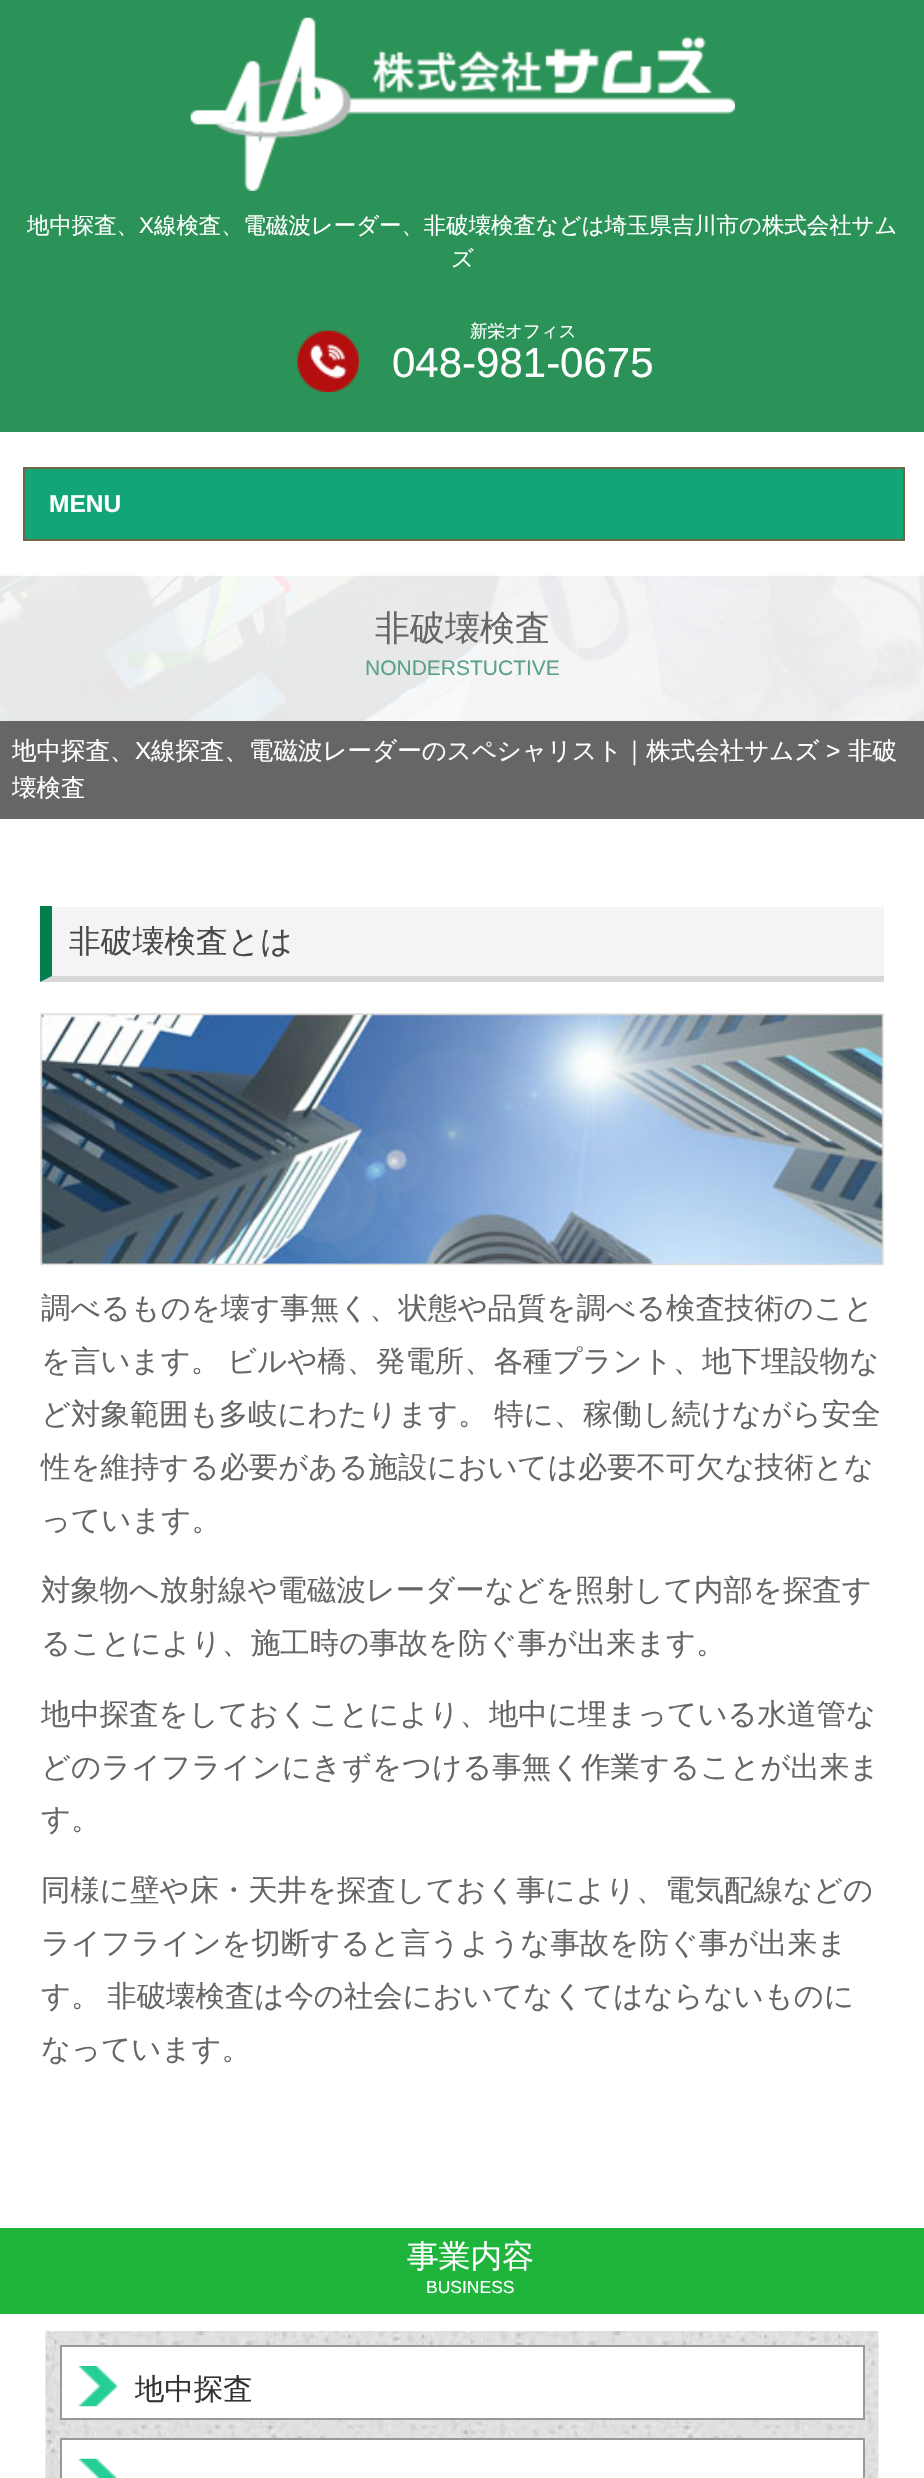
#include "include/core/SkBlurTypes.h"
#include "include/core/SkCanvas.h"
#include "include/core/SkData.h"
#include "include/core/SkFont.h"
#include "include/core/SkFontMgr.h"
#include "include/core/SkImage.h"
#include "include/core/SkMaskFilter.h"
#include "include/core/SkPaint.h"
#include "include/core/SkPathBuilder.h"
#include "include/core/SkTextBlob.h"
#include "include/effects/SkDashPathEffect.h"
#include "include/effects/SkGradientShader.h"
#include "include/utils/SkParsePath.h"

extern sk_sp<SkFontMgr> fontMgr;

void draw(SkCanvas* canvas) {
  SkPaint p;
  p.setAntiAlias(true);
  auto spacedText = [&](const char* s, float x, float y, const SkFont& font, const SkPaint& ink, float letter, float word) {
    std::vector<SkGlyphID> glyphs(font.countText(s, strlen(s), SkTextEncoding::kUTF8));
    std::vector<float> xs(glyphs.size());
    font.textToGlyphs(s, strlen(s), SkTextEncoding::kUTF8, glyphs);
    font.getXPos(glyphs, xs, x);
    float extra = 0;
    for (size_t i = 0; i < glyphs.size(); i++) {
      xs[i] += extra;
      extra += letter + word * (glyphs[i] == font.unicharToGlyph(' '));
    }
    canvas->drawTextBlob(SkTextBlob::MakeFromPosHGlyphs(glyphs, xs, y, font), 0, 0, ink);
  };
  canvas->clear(SK_ColorWHITE);
  p.setColor(SkColorSetRGB(43, 147, 87));
  canvas->drawRect(SkRect::MakeLTRB(0, 0, 924, 432), p);
  canvas->drawImageRect(SkImages::DeferredFromEncodedData(SkData::MakeFromFileName("images/1.png")), SkRect::MakeLTRB(190, 17, 735, 191), SkSamplingOptions());
  canvas->drawImageRect(SkImages::DeferredFromEncodedData(SkData::MakeFromFileName("images/2.png")), SkRect::MakeLTRB(297, 330, 359, 392), SkSamplingOptions());
  p.setColor(SkColorSetRGB(18, 165, 120));
  canvas->drawRect(SkRect::MakeLTRB(24, 468, 904, 540), p);
  p.setStyle(SkPaint::kStroke_Style);
  p.setStrokeWidth(2);
  p.setColor(SkColorSetRGB(114, 103, 73));
  canvas->drawRect(SkRect::MakeLTRB(24, 468, 904, 540), p);
  canvas->drawImageRect(SkImages::DeferredFromEncodedData(SkData::MakeFromFileName("images/3.png")), SkRect::MakeLTRB(0, 575, 924, 721), SkSamplingOptions());
  p.setStyle(SkPaint::kFill_Style);
  p.setColor(SkColorSetRGB(102, 102, 102));
  canvas->drawRect(SkRect::MakeLTRB(0, 721, 924, 819), p);
  p.setColor(SkColorSetRGB(244, 244, 244));
  canvas->drawRect(SkRect::MakeLTRB(40, 907, 884, 982), p);
  p.setColor(SkColorSetRGB(215, 215, 215));
  canvas->drawPath(SkPathBuilder().moveTo(884, 982).lineTo(40, 982).lineTo(52, 976).lineTo(884, 976).close().detach(), p);
  p.setColor(SkColorSetRGB(3, 127, 77));
  canvas->drawPath(SkPathBuilder().moveTo(40, 982).lineTo(40, 906).lineTo(52, 906).lineTo(52, 976).close().detach(), p);
  canvas->drawImageRect(SkImages::DeferredFromEncodedData(SkData::MakeFromFileName("images/4.png")), SkRect::MakeLTRB(40, 1013, 884, 1266), SkSamplingOptions());
  p.setColor(SkColorSetRGB(31, 181, 61));
  canvas->drawRect(SkRect::MakeLTRB(0, 2228, 924, 2314), p);
  canvas->drawImageRect(SkImages::DeferredFromEncodedData(SkData::MakeFromFileName("images/5.png")), SkRect::MakeLTRB(45, 2331, 879, 2478), SkSamplingOptions());
  p.setColor(SK_ColorWHITE);
  canvas->drawRect(SkRect::MakeLTRB(61, 2346, 864, 2419), p);
  p.setStyle(SkPaint::kStroke_Style);
  p.setColor(SkColorSetRGB(153, 153, 153));
  canvas->drawRect(SkRect::MakeLTRB(61, 2346, 864, 2419), p);
  canvas->drawImageRect(SkImages::DeferredFromEncodedData(SkData::MakeFromFileName("images/6.png")), SkRect::MakeLTRB(78, 2366, 118, 2407), SkSamplingOptions());
  p.setStyle(SkPaint::kFill_Style);
  p.setColor(SK_ColorWHITE);
  canvas->drawRect(SkRect::MakeLTRB(61, 2439, 864, 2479), p);
  p.setStyle(SkPaint::kStroke_Style);
  p.setColor(SkColorSetRGB(153, 153, 153));
  canvas->drawRect(SkRect::MakeLTRB(61, 2439, 864, 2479), p);
  canvas->drawImageRect(SkImages::DeferredFromEncodedData(SkData::MakeFromFileName("images/7.png")), SkRect::MakeLTRB(78, 2458, 118, 2478), SkSamplingOptions());
  SkFont font1(fontMgr->matchFamilyStyle("WenQuanYi Zen Hei", SkFontStyle(500, SkFontStyle::kNormal_Width, SkFontStyle::kUpright_Slant)), 22.4f);
  font1.setSubpixel(true);
  p.setStyle(SkPaint::kFill_Style);
  p.setColor(SK_ColorWHITE);
  canvas->drawString("地中探査、", 27, 233, font1, p);
  SkFont font2(fontMgr->matchFamilyStyle("Liberation Sans", SkFontStyle::Normal()), 22.4f);
  font2.setSubpixel(true);
  canvas->drawString("X", 139, 233, font2, p);
  canvas->drawString("線検査、電磁波レーダー、非破壊検査などは埼玉県吉川市の株式会社サム", 154, 233, font1, p);
  canvas->drawString("ズ", 451, 266, font1, p);
  SkFont font3(fontMgr->matchFamilyStyle("WenQuanYi Zen Hei", SkFontStyle(500, SkFontStyle::kNormal_Width, SkFontStyle::kUpright_Slant)), 17.5f);
  font3.setSubpixel(true);
  canvas->drawString("新栄オフィス", 470, 337, font3, p);
  SkFont font4(fontMgr->matchFamilyStyle("Liberation Sans", SkFontStyle::Normal()), 42);
  font4.setSubpixel(true);
  canvas->drawString("048-981-0675", 392, 377, font4, p);
  SkFont font5(fontMgr->matchFamilyStyle("Liberation Sans", SkFontStyle::Bold()), 24.5f);
  font5.setSubpixel(true);
  canvas->drawString("MENU", 49, 512, font5, p);
  SkFont font6(fontMgr->matchFamilyStyle("WenQuanYi Zen Hei", SkFontStyle(500, SkFontStyle::kNormal_Width, SkFontStyle::kUpright_Slant)), 35);
  font6.setSubpixel(true);
  p.setColor(SkColorSetRGB(102, 102, 102));
  canvas->drawString("非破壊検査", 375, 640, font6, p);
  SkFont font7(fontMgr->matchFamilyStyle("Liberation Sans", SkFontStyle::Normal()), 21);
  font7.setSubpixel(true);
  p.setColor(SkColorSetRGB(91, 161, 137));
  canvas->drawString("NONDERSTUCTIVE", 365, 675, font7, p);
  SkFont font8(fontMgr->matchFamilyStyle("WenQuanYi Zen Hei", SkFontStyle(500, SkFontStyle::kNormal_Width, SkFontStyle::kUpright_Slant)), 24.5f);
  font8.setSubpixel(true);
  p.setColor(SK_ColorWHITE);
  canvas->drawString("地中探査、", 12, 759, font8, p);
  SkFont font9(fontMgr->matchFamilyStyle("Liberation Sans", SkFontStyle::Normal()), 24.5f);
  font9.setSubpixel(true);
  canvas->drawString("X", 135, 759, font9, p);
  canvas->drawString("線探査、電磁波レーダーのスペシャリスト｜株式会社サムズ", 151, 759, font8, p);
  canvas->drawString(">", 826, 759, font9, p);
  canvas->drawString("非破", 848, 759, font8, p);
  canvas->drawString("壊検査", 12, 796, font8, p);
  SkFont font10(fontMgr->matchFamilyStyle("WenQuanYi Zen Hei", SkFontStyle(500, SkFontStyle::kNormal_Width, SkFontStyle::kUpright_Slant)), 31.75f);
  font10.setSubpixel(true);
  p.setColor(SkColorSetRGB(73, 73, 73));
  canvas->drawString("非破壊検査とは", 69, 952, font10, p);
  SkFont font11(fontMgr->matchFamilyStyle("WenQuanYi Zen Hei", SkFontStyle(500, SkFontStyle::kNormal_Width, SkFontStyle::kUpright_Slant)), 29.4f);
  font11.setSubpixel(true);
  p.setColor(SkColorSetRGB(102, 102, 102));
  canvas->drawString("調べるものを壊す事無く、状態や品質を調べる検査技術のこと", 41, 1318, font11, p);
  spacedText("を言います。 ビルや橋、発電所、各種プラント、地下埋設物な", 41, 1371, font11, p, 0, -2);
  spacedText("ど対象範囲も多岐にわたります。 特に、稼働し続けながら安全", 41, 1424, font11, p, 0, -2);
  canvas->drawString("性を維持する必要がある施設においては必要不可欠な技術とな", 41, 1477, font11, p);
  canvas->drawString("っています。", 41, 1530, font11, p);
  canvas->drawString("対象物へ放射線や電磁波レーダーなどを照射して内部を探査す", 41, 1600, font11, p);
  canvas->drawString("ることにより、施工時の事故を防ぐ事が出来ます。", 41, 1653, font11, p);
  canvas->drawString("地中探査をしておくことにより、地中に埋まっている水道管な", 41, 1724, font11, p);
  canvas->drawString("どのライフラインにきずをつける事無く作業することが出来ま", 41, 1777, font11, p);
  canvas->drawString("す。", 41, 1829, font11, p);
  canvas->drawString("同様に壁や床・天井を探査しておく事により、電気配線などの", 41, 1900, font11, p);
  canvas->drawString("ライフラインを切断すると言うような事故を防ぐ事が出来ま", 41, 1953, font11, p);
  spacedText("す。 非破壊検査は今の社会においてなくてはならないものに", 41, 2006, font11, p, 0, -2);
  canvas->drawString("なっています。", 41, 2059, font11, p);
  p.setColor(SK_ColorWHITE);
  canvas->drawString("事業内容", 407, 2267, font10, p);
  SkFont font12(fontMgr->matchFamilyStyle("Liberation Sans", SkFontStyle::Normal()), 17.5f);
  font12.setSubpixel(true);
  canvas->drawString("BUSINESS", 426, 2293, font12, p);
  p.setColor(SkColorSetRGB(51, 51, 51));
  canvas->drawString("地中探査", 135, 2399, font11, p);
}
